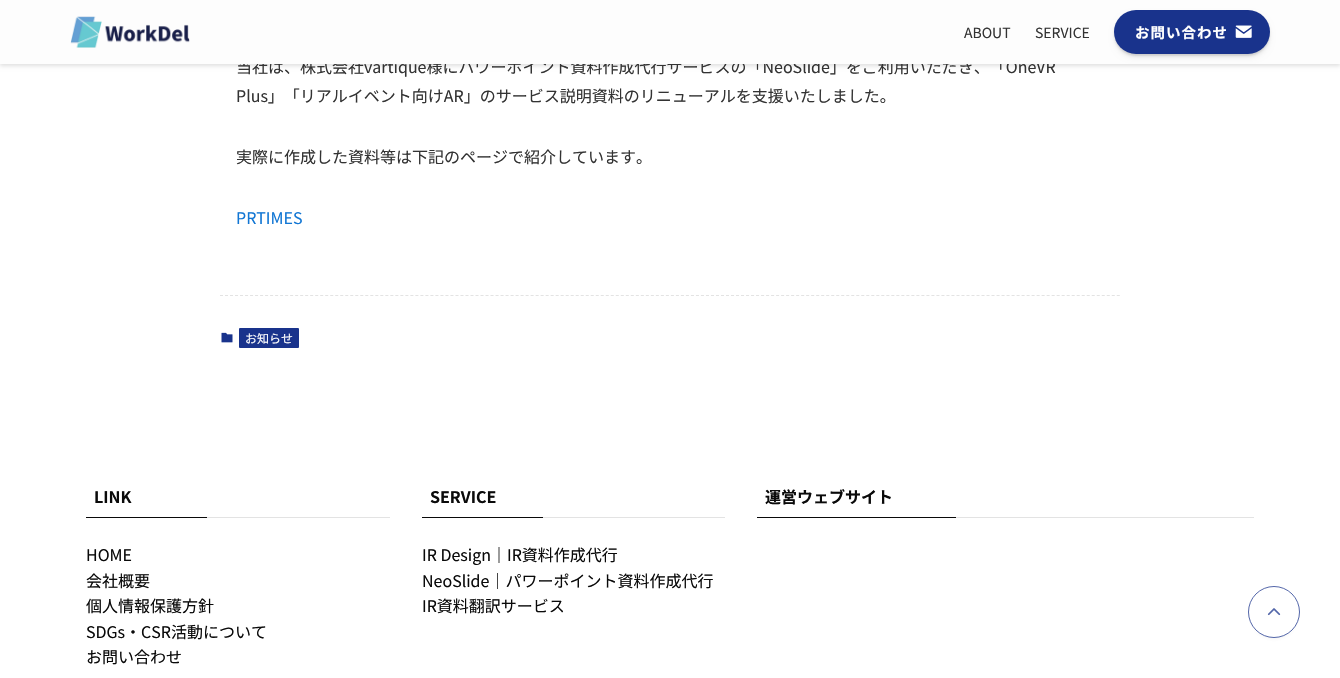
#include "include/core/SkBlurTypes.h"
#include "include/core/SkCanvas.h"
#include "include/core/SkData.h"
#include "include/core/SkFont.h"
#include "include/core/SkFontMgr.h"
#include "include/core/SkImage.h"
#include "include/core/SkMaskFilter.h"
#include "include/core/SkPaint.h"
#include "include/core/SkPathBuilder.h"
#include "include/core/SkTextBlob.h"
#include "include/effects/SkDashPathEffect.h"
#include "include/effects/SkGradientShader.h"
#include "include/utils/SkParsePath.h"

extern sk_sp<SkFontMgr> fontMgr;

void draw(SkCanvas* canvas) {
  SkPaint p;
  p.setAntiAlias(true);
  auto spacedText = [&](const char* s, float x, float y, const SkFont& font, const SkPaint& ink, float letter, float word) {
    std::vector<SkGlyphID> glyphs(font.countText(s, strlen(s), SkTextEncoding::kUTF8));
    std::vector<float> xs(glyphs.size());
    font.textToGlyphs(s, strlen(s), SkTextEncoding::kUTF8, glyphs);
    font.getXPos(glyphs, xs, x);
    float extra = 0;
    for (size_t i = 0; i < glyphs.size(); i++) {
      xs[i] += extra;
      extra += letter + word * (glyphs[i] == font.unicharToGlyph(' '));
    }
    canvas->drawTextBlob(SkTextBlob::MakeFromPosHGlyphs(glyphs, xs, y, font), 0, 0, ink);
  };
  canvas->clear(SK_ColorWHITE);
  p.setColor(SkColorSetARGB(31, 0, 0, 0));
  p.setMaskFilter(SkMaskFilter::MakeBlur(kNormal_SkBlurStyle, 2));
  canvas->drawRect(SkRect::MakeLTRB(0, 2, 1340, 66), p);
  p.setMaskFilter(nullptr);
  p.setStyle(SkPaint::kStroke_Style);
  p.setStrokeWidth(1);
  p.setColor(SkColorSetRGB(227, 227, 227));
  p.setPathEffect(SkDashPathEffect::Make({{3, 2.01f}}, 0));
  canvas->drawPath(SkPathBuilder().moveTo(220, 295.5f).lineTo(1120, 295.5f).detach(), p);
  p.setPathEffect(nullptr);
  canvas->drawImageRect(SkImages::DeferredFromEncodedData(SkData::MakeFromFileName("images/3.png")), SkRect::MakeLTRB(221, 332, 233, 343), SkSamplingOptions());
  p.setStyle(SkPaint::kFill_Style);
  p.setColor(SkColorSetRGB(25, 51, 140));
  canvas->drawRoundRect(SkRect::MakeLTRB(239, 328, 299, 348), 1, 1, p);
  p.setColor(SkColorSetRGB(10, 10, 10));
  canvas->drawRect(SkRect::MakeLTRB(86, 517, 207, 518), p);
  p.setColor(SkColorSetRGB(227, 227, 227));
  canvas->drawRect(SkRect::MakeLTRB(207, 517, 390, 518), p);
  p.setColor(SkColorSetRGB(10, 10, 10));
  canvas->drawRect(SkRect::MakeLTRB(422, 517, 543, 518), p);
  p.setColor(SkColorSetRGB(227, 227, 227));
  canvas->drawRect(SkRect::MakeLTRB(543, 517, 725, 518), p);
  p.setColor(SkColorSetRGB(10, 10, 10));
  canvas->drawRect(SkRect::MakeLTRB(757, 517, 956, 518), p);
  p.setColor(SkColorSetRGB(227, 227, 227));
  canvas->drawRect(SkRect::MakeLTRB(956, 517, 1254, 518), p);
  p.setColor(SkColorSetARGB(26, 64, 64, 64));
  p.setMaskFilter(SkMaskFilter::MakeBlur(kNormal_SkBlurStyle, 2));
  canvas->drawRoundRect(SkRect::MakeLTRB(1252, 594, 1296, 638), 22, 22, p);
  p.setMaskFilter(nullptr);
  p.setColor(SK_ColorWHITE);
  canvas->drawCircle(1274, 612, 25.5f, p);
  p.setStyle(SkPaint::kStroke_Style);
  p.setColor(SkColorSetRGB(83, 102, 169));
  canvas->drawCircle(1274, 612, 25.5f, p);
  canvas->drawImageRect(SkImages::DeferredFromEncodedData(SkData::MakeFromFileName("images/4.png")), SkRect::MakeLTRB(1267, 608, 1281, 616), SkSamplingOptions());
  SkFont font1(fontMgr->matchFamilyStyle("Noto Sans JP", SkFontStyle::Normal()), 16);
  font1.setSubpixel(true);
  p.setStyle(SkPaint::kFill_Style);
  p.setColor(SkColorSetRGB(51, 51, 51));
  canvas->drawString("当社は、株式会社vartique様にパワーポイント資料作成代行サービスの「NeoSlide」をご利用いただき、「OneVR", 236, 73, font1, p);
  p.setColor(SkColorSetRGB(253, 253, 253));
  canvas->drawRect(SkRect::MakeLTRB(0, 0, 1340, 64), p);
  SkFont font2(fontMgr->matchFamilyStyle("Noto Sans JP", SkFontStyle::Normal()), 14);
  font2.setSubpixel(true);
  p.setColor(SkColorSetRGB(51, 51, 51));
  canvas->drawString("SERVICE", 1035, 38, font2, p);
  canvas->drawString("ABOUT", 964, 38, font2, p);
  p.setColor(SkColorSetARGB(26, 0, 0, 0));
  p.setMaskFilter(SkMaskFilter::MakeBlur(kNormal_SkBlurStyle, 1));
  canvas->drawRoundRect(SkRect::MakeLTRB(1114, 12, 1270, 56), 22, 22, p);
  p.setMaskFilter(nullptr);
  p.setColor(SkColorSetARGB(51, 0, 0, 0));
  p.setMaskFilter(SkMaskFilter::MakeBlur(kNormal_SkBlurStyle, 4));
  canvas->drawRoundRect(SkRect::MakeLTRB(1118, 18, 1266, 54), 18, 18, p);
  p.setMaskFilter(nullptr);
  p.setColor(SkColorSetRGB(25, 51, 140));
  canvas->drawRoundRect(SkRect::MakeLTRB(1114, 10, 1270, 54), 22, 22, p);
  canvas->drawImageRect(SkImages::DeferredFromEncodedData(SkData::MakeFromFileName("images/2.png")), SkRect::MakeLTRB(1235, 25, 1252, 38), SkSamplingOptions());
  SkFont font3(fontMgr->matchFamilyStyle("Noto Sans JP", SkFontStyle::Bold()), 14.5f);
  font3.setSubpixel(true);
  p.setColor(SK_ColorWHITE);
  spacedText("お問い合わせ", 1135, 38, font3, p, 1, 0);
  canvas->drawImageRect(SkImages::DeferredFromEncodedData(SkData::MakeFromFileName("images/1.png")), SkRect::MakeLTRB(70, 16, 190, 48), SkSamplingOptions());
  p.setColor(SkColorSetRGB(51, 51, 51));
  canvas->drawString("Plus」「リアルイベント向けAR」のサービス説明資料のリニューアルを支援いたしました。", 236, 102, font1, p);
  canvas->drawString("実際に作成した資料等は下記のページで紹介しています。", 236, 163, font1, p);
  p.setColor(SkColorSetRGB(17, 118, 212));
  canvas->drawString("PRTIMES", 236, 224, font1, p);
  SkFont font4(fontMgr->matchFamilyStyle("Noto Sans JP", SkFontStyle::Normal()), 12);
  font4.setSubpixel(true);
  p.setColor(SK_ColorWHITE);
  canvas->drawString("お知らせ", 245, 343, font4, p);
  SkFont font5(fontMgr->matchFamilyStyle("Noto Sans JP", SkFontStyle::Bold()), 16);
  font5.setSubpixel(true);
  p.setColor(SkColorSetRGB(10, 10, 10));
  canvas->drawString("LINK", 94, 503, font5, p);
  canvas->drawString("HOME", 86, 561, font1, p);
  canvas->drawString("会社概要", 86, 587, font1, p);
  canvas->drawString("個人情報保護方針", 86, 612, font1, p);
  canvas->drawString("SDGs・CSR活動について", 86, 638, font1, p);
  canvas->drawString("お問い合わせ", 86, 663, font1, p);
  canvas->drawString("SERVICE", 430, 503, font5, p);
  canvas->drawString("IR Design｜IR資料作成代行", 422, 561, font1, p);
  canvas->drawString("NeoSlide｜パワーポイント資料作成代行", 422, 587, font1, p);
  canvas->drawString("IR資料翻訳サービス", 422, 612, font1, p);
  canvas->drawString("運営ウェブサイト", 765, 503, font5, p);
}
